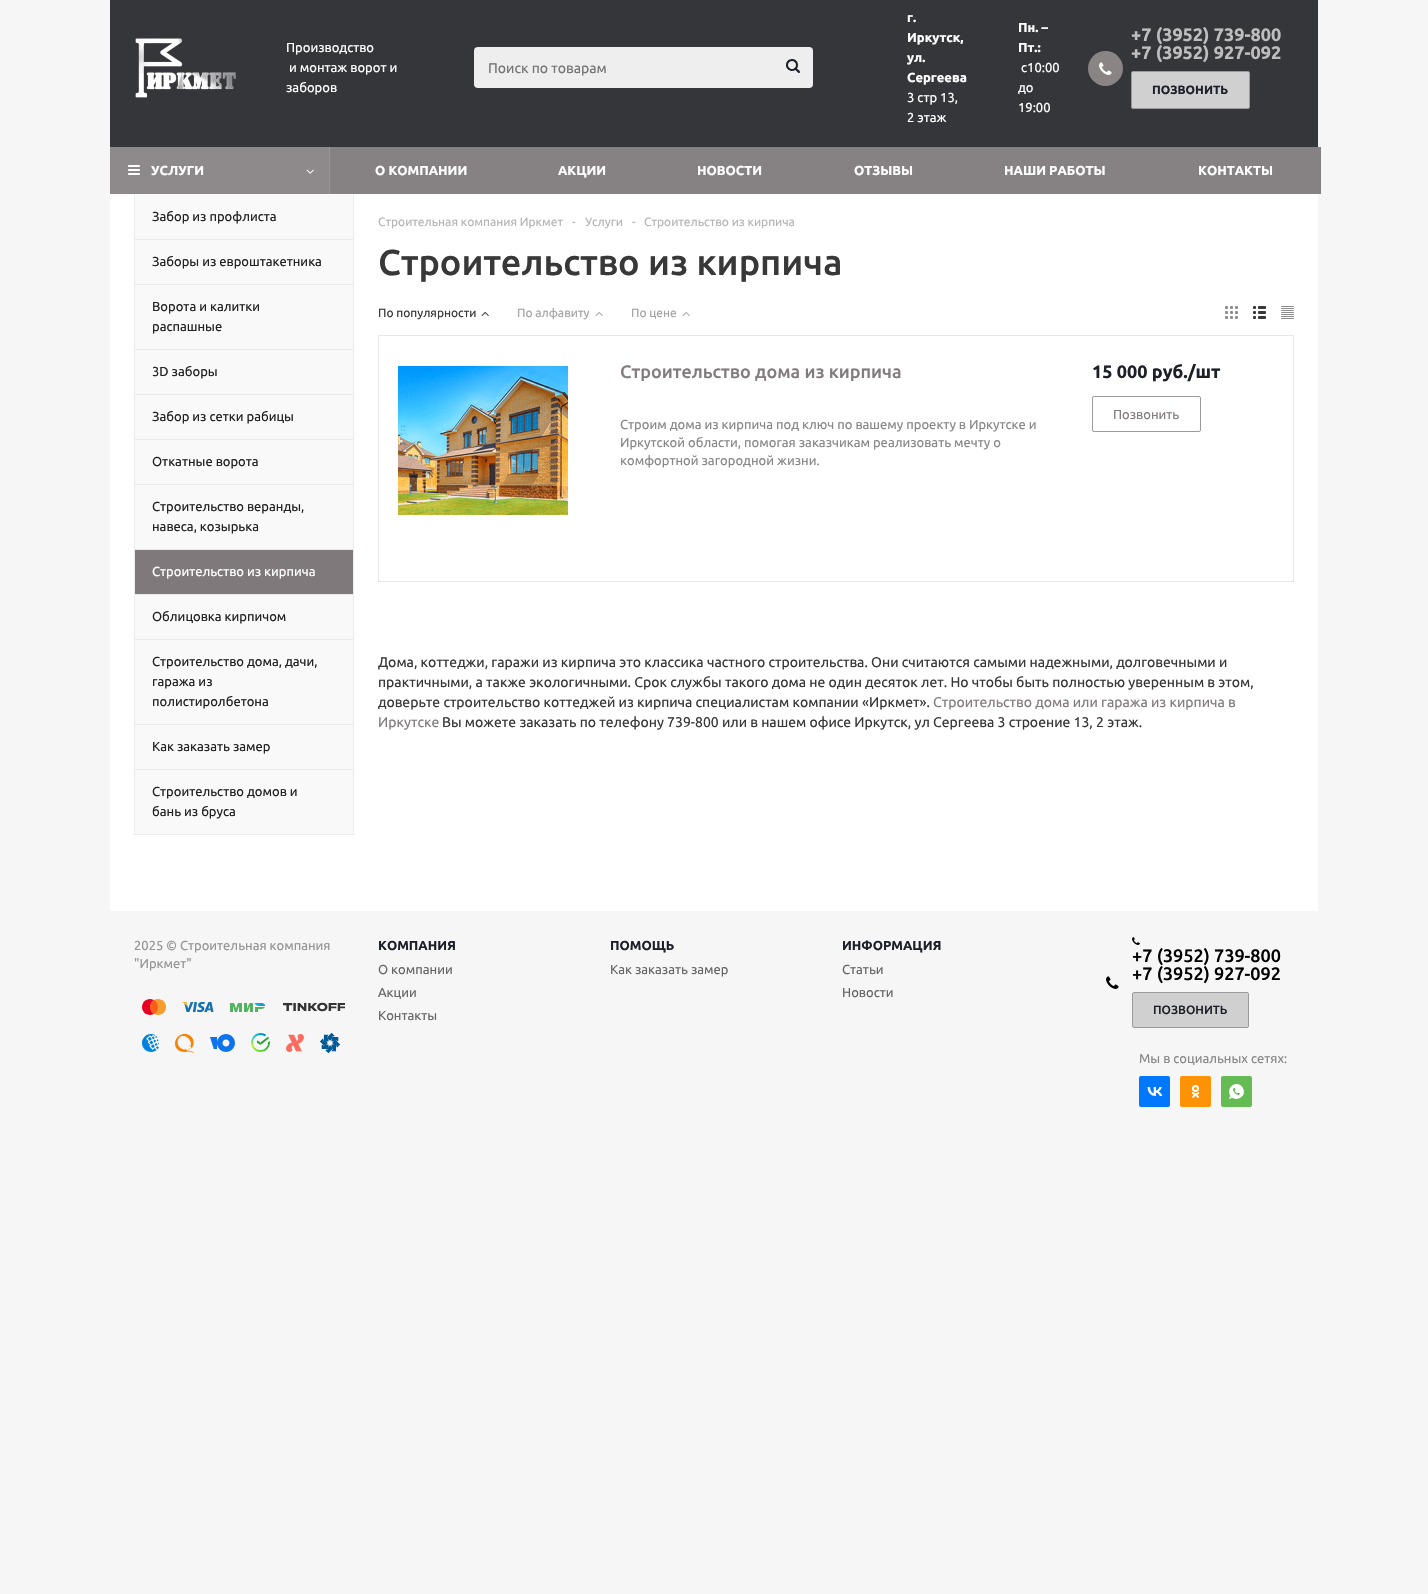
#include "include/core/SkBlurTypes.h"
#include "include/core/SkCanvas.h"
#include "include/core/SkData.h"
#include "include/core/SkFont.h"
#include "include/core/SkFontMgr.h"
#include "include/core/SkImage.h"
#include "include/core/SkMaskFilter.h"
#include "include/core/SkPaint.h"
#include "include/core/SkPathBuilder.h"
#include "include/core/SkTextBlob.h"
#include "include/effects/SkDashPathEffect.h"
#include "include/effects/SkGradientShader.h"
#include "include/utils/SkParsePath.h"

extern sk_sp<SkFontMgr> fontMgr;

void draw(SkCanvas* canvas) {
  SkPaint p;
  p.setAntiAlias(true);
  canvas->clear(SkColorSetRGB(246, 246, 247));
  p.setColor(SkColorSetRGB(52, 54, 58));
  canvas->drawRect(SkRect::MakeLTRB(110, 0, 1318, 147), p);
  canvas->drawImageRect(SkImages::DeferredFromEncodedData(SkData::MakeFromFileName("images/1.png")), SkRect::MakeLTRB(135, 38, 236, 98), SkSamplingOptions());
  p.setColor(SkColorSetRGB(238, 238, 238));
  canvas->drawRoundRect(SkRect::MakeLTRB(474, 47, 813, 88), 4, 4, p);
  canvas->drawImageRect(SkImages::DeferredFromEncodedData(SkData::MakeFromFileName("images/2.png")), SkRect::MakeLTRB(786, 59, 800, 73), SkSamplingOptions());
  p.setColor(SkColorSetRGB(138, 132, 133));
  canvas->drawCircle(1105.5f, 68.5f, 17.5f, p);
  canvas->drawImageRect(SkImages::DeferredFromEncodedData(SkData::MakeFromFileName("images/3.png")), SkRect::MakeLTRB(1099, 62, 1112, 75), SkSamplingOptions());
  p.setColor(SkColorSetRGB(208, 208, 208));
  canvas->drawRoundRect(SkRect::MakeLTRB(1131.5f, 71.5f, 1249.5f, 108.5f), 1.5f, 1.5f, p);
  p.setStyle(SkPaint::kStroke_Style);
  p.setStrokeWidth(1);
  p.setColor(SkColorSetRGB(155, 155, 155));
  canvas->drawRoundRect(SkRect::MakeLTRB(1131.5f, 71.5f, 1249.5f, 108.5f), 1.5f, 1.5f, p);
  p.setStyle(SkPaint::kFill_Style);
  p.setColor(SkColorSetRGB(134, 130, 131));
  canvas->drawRect(SkRect::MakeLTRB(330, 147, 1321, 194), p);
  p.setColor(SkColorSetRGB(142, 138, 139));
  canvas->drawRect(SkRect::MakeLTRB(110, 147, 329, 194), p);
  canvas->drawImageRect(SkImages::DeferredFromEncodedData(SkData::MakeFromFileName("images/4.png")), SkRect::MakeLTRB(128, 165, 140, 175), SkSamplingOptions());
  p.setColor(SkColorSetRGB(153, 150, 151));
  canvas->drawRect(SkRect::MakeLTRB(329, 147, 330, 194), p);
  canvas->drawImageRect(SkImages::DeferredFromEncodedData(SkData::MakeFromFileName("images/5.png")), SkRect::MakeLTRB(306, 169, 314, 174), SkSamplingOptions());
  p.setColor(SK_ColorWHITE);
  canvas->drawRect(SkRect::MakeLTRB(110, 194, 1318, 911), p);
  p.setColor(SkColorSetRGB(249, 249, 249));
  canvas->drawRect(SkRect::MakeLTRB(135, 195, 353, 239), p);
  p.setColor(SkColorSetRGB(234, 235, 236));
  canvas->drawRect(SkRect::MakeLTRB(353, 195, 354, 239), p);
  canvas->drawRect(SkRect::MakeLTRB(134, 195, 135, 239), p);
  p.setColor(SkColorSetRGB(249, 249, 249));
  canvas->drawRect(SkRect::MakeLTRB(135, 240, 353, 284), p);
  p.setColor(SkColorSetRGB(234, 235, 236));
  canvas->drawRect(SkRect::MakeLTRB(134, 239, 354, 240), p);
  canvas->drawRect(SkRect::MakeLTRB(353, 239, 354, 284), p);
  canvas->drawRect(SkRect::MakeLTRB(134, 239, 135, 284), p);
  p.setColor(SkColorSetRGB(249, 249, 249));
  canvas->drawRect(SkRect::MakeLTRB(135, 285, 353, 349), p);
  p.setColor(SkColorSetRGB(234, 235, 236));
  canvas->drawRect(SkRect::MakeLTRB(134, 284, 354, 285), p);
  canvas->drawRect(SkRect::MakeLTRB(353, 284, 354, 349), p);
  canvas->drawRect(SkRect::MakeLTRB(134, 284, 135, 349), p);
  p.setColor(SkColorSetRGB(249, 249, 249));
  canvas->drawRect(SkRect::MakeLTRB(135, 350, 353, 394), p);
  p.setColor(SkColorSetRGB(234, 235, 236));
  canvas->drawRect(SkRect::MakeLTRB(134, 349, 354, 350), p);
  canvas->drawRect(SkRect::MakeLTRB(353, 349, 354, 394), p);
  canvas->drawRect(SkRect::MakeLTRB(134, 349, 135, 394), p);
  p.setColor(SkColorSetRGB(249, 249, 249));
  canvas->drawRect(SkRect::MakeLTRB(135, 395, 353, 439), p);
  p.setColor(SkColorSetRGB(234, 235, 236));
  canvas->drawRect(SkRect::MakeLTRB(134, 394, 354, 395), p);
  canvas->drawRect(SkRect::MakeLTRB(353, 394, 354, 439), p);
  canvas->drawRect(SkRect::MakeLTRB(134, 394, 135, 439), p);
  p.setColor(SkColorSetRGB(249, 249, 249));
  canvas->drawRect(SkRect::MakeLTRB(135, 440, 353, 484), p);
  p.setColor(SkColorSetRGB(234, 235, 236));
  canvas->drawRect(SkRect::MakeLTRB(134, 439, 354, 440), p);
  canvas->drawRect(SkRect::MakeLTRB(353, 439, 354, 484), p);
  canvas->drawRect(SkRect::MakeLTRB(134, 439, 135, 484), p);
  p.setColor(SkColorSetRGB(249, 249, 249));
  canvas->drawRect(SkRect::MakeLTRB(135, 485, 353, 549), p);
  p.setColor(SkColorSetRGB(234, 235, 236));
  canvas->drawRect(SkRect::MakeLTRB(134, 484, 354, 485), p);
  canvas->drawRect(SkRect::MakeLTRB(353, 484, 354, 549), p);
  canvas->drawRect(SkRect::MakeLTRB(134, 484, 135, 549), p);
  p.setColor(SkColorSetRGB(128, 121, 123));
  canvas->drawRect(SkRect::MakeLTRB(135, 550, 353, 594), p);
  p.setColor(SkColorSetRGB(234, 235, 236));
  canvas->drawRect(SkRect::MakeLTRB(134, 549, 354, 550), p);
  canvas->drawRect(SkRect::MakeLTRB(353, 549, 354, 594), p);
  canvas->drawRect(SkRect::MakeLTRB(134, 549, 135, 594), p);
  p.setColor(SkColorSetRGB(249, 249, 249));
  canvas->drawRect(SkRect::MakeLTRB(135, 595, 353, 639), p);
  p.setColor(SkColorSetRGB(234, 235, 236));
  canvas->drawRect(SkRect::MakeLTRB(134, 594, 354, 595), p);
  canvas->drawRect(SkRect::MakeLTRB(353, 594, 354, 639), p);
  canvas->drawRect(SkRect::MakeLTRB(134, 594, 135, 639), p);
  p.setColor(SkColorSetRGB(249, 249, 249));
  canvas->drawRect(SkRect::MakeLTRB(135, 640, 353, 724), p);
  p.setColor(SkColorSetRGB(234, 235, 236));
  canvas->drawRect(SkRect::MakeLTRB(134, 639, 354, 640), p);
  canvas->drawRect(SkRect::MakeLTRB(353, 639, 354, 724), p);
  canvas->drawRect(SkRect::MakeLTRB(134, 639, 135, 724), p);
  p.setColor(SkColorSetRGB(249, 249, 249));
  canvas->drawRect(SkRect::MakeLTRB(135, 725, 353, 769), p);
  p.setColor(SkColorSetRGB(234, 235, 236));
  canvas->drawRect(SkRect::MakeLTRB(134, 724, 354, 725), p);
  canvas->drawRect(SkRect::MakeLTRB(353, 724, 354, 769), p);
  canvas->drawRect(SkRect::MakeLTRB(134, 724, 135, 769), p);
  p.setColor(SkColorSetRGB(249, 249, 249));
  canvas->drawRect(SkRect::MakeLTRB(134.5f, 769.5f, 353.5f, 834.5f), p);
  p.setStyle(SkPaint::kStroke_Style);
  p.setColor(SkColorSetRGB(234, 235, 236));
  canvas->drawRect(SkRect::MakeLTRB(134.5f, 769.5f, 353.5f, 834.5f), p);
  canvas->drawImageRect(SkImages::DeferredFromEncodedData(SkData::MakeFromFileName("images/6.png")), SkRect::MakeLTRB(481, 311, 489, 316), SkSamplingOptions());
  canvas->drawImageRect(SkImages::DeferredFromEncodedData(SkData::MakeFromFileName("images/7.png")), SkRect::MakeLTRB(595, 311, 603, 316), SkSamplingOptions());
  canvas->drawImageRect(SkImages::DeferredFromEncodedData(SkData::MakeFromFileName("images/7.png")), SkRect::MakeLTRB(682, 311, 690, 316), SkSamplingOptions());
  canvas->drawImageRect(SkImages::DeferredFromEncodedData(SkData::MakeFromFileName("images/8.png")), SkRect::MakeLTRB(1225, 306, 1238, 319), SkSamplingOptions());
  canvas->drawImageRect(SkImages::DeferredFromEncodedData(SkData::MakeFromFileName("images/9.png")), SkRect::MakeLTRB(1253, 306, 1266, 319), SkSamplingOptions());
  canvas->drawImageRect(SkImages::DeferredFromEncodedData(SkData::MakeFromFileName("images/10.png")), SkRect::MakeLTRB(1281, 306, 1294, 319), SkSamplingOptions());
  p.setColor(SkColorSetRGB(231, 231, 231));
  canvas->drawRect(SkRect::MakeLTRB(378.5f, 335.5f, 1293.5f, 581.5f), p);
  canvas->drawImageRect(SkImages::DeferredFromEncodedData(SkData::MakeFromFileName("images/11.png")), SkRect::MakeLTRB(398, 366, 568, 515), SkSamplingOptions());
  p.setColor(SkColorSetRGB(155, 155, 155));
  canvas->drawRoundRect(SkRect::MakeLTRB(1092.5f, 396.5f, 1200.5f, 431.5f), 1.5f, 1.5f, p);
  canvas->drawImageRect(SkImages::DeferredFromEncodedData(SkData::MakeFromFileName("images/12.png")), SkRect::MakeLTRB(142, 999, 166, 1015), SkSamplingOptions());
  canvas->drawImageRect(SkImages::DeferredFromEncodedData(SkData::MakeFromFileName("images/13.png")), SkRect::MakeLTRB(182, 1002, 214, 1012), SkSamplingOptions());
  canvas->drawImageRect(SkImages::DeferredFromEncodedData(SkData::MakeFromFileName("images/14.png")), SkRect::MakeLTRB(230, 1003, 265, 1012), SkSamplingOptions());
  canvas->drawImageRect(SkImages::DeferredFromEncodedData(SkData::MakeFromFileName("images/15.png")), SkRect::MakeLTRB(283, 1002, 345, 1012), SkSamplingOptions());
  canvas->drawImageRect(SkImages::DeferredFromEncodedData(SkData::MakeFromFileName("images/16.png")), SkRect::MakeLTRB(142, 1034, 159, 1052), SkSamplingOptions());
  canvas->drawImageRect(SkImages::DeferredFromEncodedData(SkData::MakeFromFileName("images/17.png")), SkRect::MakeLTRB(175, 1034, 194, 1053), SkSamplingOptions());
  canvas->drawImageRect(SkImages::DeferredFromEncodedData(SkData::MakeFromFileName("images/18.png")), SkRect::MakeLTRB(210, 1034, 235, 1052), SkSamplingOptions());
  canvas->drawImageRect(SkImages::DeferredFromEncodedData(SkData::MakeFromFileName("images/19.png")), SkRect::MakeLTRB(251, 1033, 270, 1052), SkSamplingOptions());
  canvas->drawImageRect(SkImages::DeferredFromEncodedData(SkData::MakeFromFileName("images/20.png")), SkRect::MakeLTRB(286, 1034, 304, 1052), SkSamplingOptions());
  canvas->drawImageRect(SkImages::DeferredFromEncodedData(SkData::MakeFromFileName("images/21.png")), SkRect::MakeLTRB(320, 1033, 340, 1053), SkSamplingOptions());
  canvas->drawImageRect(SkImages::DeferredFromEncodedData(SkData::MakeFromFileName("images/22.png")), SkRect::MakeLTRB(1106, 976, 1119, 989), SkSamplingOptions());
  canvas->drawImageRect(SkImages::DeferredFromEncodedData(SkData::MakeFromFileName("images/23.png")), SkRect::MakeLTRB(1132, 937, 1140, 945), SkSamplingOptions());
  p.setStyle(SkPaint::kFill_Style);
  p.setColor(SkColorSetRGB(208, 208, 208));
  canvas->drawRoundRect(SkRect::MakeLTRB(1132.5f, 992.5f, 1248.5f, 1027.5f), 1.5f, 1.5f, p);
  p.setStyle(SkPaint::kStroke_Style);
  p.setColor(SkColorSetRGB(155, 155, 155));
  canvas->drawRoundRect(SkRect::MakeLTRB(1132.5f, 992.5f, 1248.5f, 1027.5f), 1.5f, 1.5f, p);
  canvas->drawImageRect(SkImages::DeferredFromEncodedData(SkData::MakeFromFileName("images/24.png")), SkRect::MakeLTRB(1139, 1076, 1170, 1107), SkSamplingOptions());
  canvas->drawImageRect(SkImages::DeferredFromEncodedData(SkData::MakeFromFileName("images/25.png")), SkRect::MakeLTRB(1180, 1076, 1211, 1107), SkSamplingOptions());
  canvas->drawImageRect(SkImages::DeferredFromEncodedData(SkData::MakeFromFileName("images/26.png")), SkRect::MakeLTRB(1221, 1076, 1252, 1107), SkSamplingOptions());
  SkFont font1(fontMgr->matchFamilyStyle("Ubuntu", SkFontStyle::Normal()), 13);
  font1.setSubpixel(true);
  p.setStyle(SkPaint::kFill_Style);
  p.setColor(SK_ColorWHITE);
  canvas->drawString("Производство", 286, 52, font1, p);
  canvas->drawString("и монтаж ворот и", 289, 72, font1, p);
  canvas->drawString("заборов", 286, 92, font1, p);
  SkFont font2(fontMgr->matchFamilyStyle("Ubuntu", SkFontStyle::Normal()), 14);
  font2.setSubpixel(true);
  p.setColor(SkColorSetRGB(117, 117, 117));
  canvas->drawString("Поиск по товарам", 488, 73, font2, p);
  SkFont font3(fontMgr->matchFamilyStyle("Ubuntu", SkFontStyle::Bold()), 13);
  font3.setSubpixel(true);
  p.setColor(SK_ColorWHITE);
  canvas->drawString("г.", 907, 22, font3, p);
  canvas->drawString("Иркутск,", 907, 42, font3, p);
  canvas->drawString("ул.", 907, 62, font3, p);
  canvas->drawString("Сергеева", 907, 82, font3, p);
  canvas->drawString("3 стр 13,", 907, 102, font1, p);
  canvas->drawString("2 этаж", 907, 122, font1, p);
  canvas->drawString("Пн. –", 1018, 32, font3, p);
  canvas->drawString("Пт.:", 1018, 52, font3, p);
  canvas->drawString("с10:00", 1021, 72, font1, p);
  canvas->drawString("до", 1018, 92, font1, p);
  canvas->drawString("19:00", 1018, 112, font1, p);
  SkFont font4(fontMgr->matchFamilyStyle("Ubuntu", SkFontStyle::Bold()), 18);
  font4.setSubpixel(true);
  p.setColor(SkColorSetRGB(190, 190, 190));
  canvas->drawString("+7 (3952) 739-800", 1131, 41, font4, p);
  canvas->drawString("+7 (3952) 927-092", 1131, 59, font4, p);
  SkFont font5(fontMgr->matchFamilyStyle("Ubuntu", SkFontStyle::Bold()), 12);
  font5.setSubpixel(true);
  p.setColor(SkColorSetRGB(29, 32, 41));
  canvas->drawString("ПОЗВОНИТЬ", 1152, 94, font5, p);
  p.setColor(SK_ColorWHITE);
  canvas->drawString("УСЛУГИ", 151, 175, font3, p);
  canvas->drawString("О КОМПАНИИ", 375, 175, font3, p);
  canvas->drawString("АКЦИИ", 558, 175, font3, p);
  canvas->drawString("НОВОСТИ", 697, 175, font3, p);
  canvas->drawString("ОТЗЫВЫ", 854, 175, font3, p);
  canvas->drawString("НАШИ РАБОТЫ", 1004, 175, font3, p);
  canvas->drawString("КОНТАКТЫ", 1198, 175, font3, p);
  p.setColor(SkColorSetRGB(34, 34, 34));
  canvas->drawString("Забор из профлиста", 152, 221, font1, p);
  canvas->drawString("Заборы из евроштакетника", 152, 266, font1, p);
  canvas->drawString("Ворота и калитки", 152, 311, font1, p);
  canvas->drawString("распашные", 152, 331, font1, p);
  canvas->drawString("3D заборы", 152, 376, font1, p);
  canvas->drawString("Забор из сетки рабицы", 152, 421, font1, p);
  canvas->drawString("Откатные ворота", 152, 466, font1, p);
  canvas->drawString("Строительство веранды,", 152, 511, font1, p);
  canvas->drawString("навеса, козырька", 152, 531, font1, p);
  p.setColor(SK_ColorWHITE);
  canvas->drawString("Строительство из кирпича", 152, 576, font1, p);
  p.setColor(SkColorSetRGB(34, 34, 34));
  canvas->drawString("Облицовка кирпичом", 152, 621, font1, p);
  canvas->drawString("Строительство дома, дачи,", 152, 666, font1, p);
  canvas->drawString("гаража из", 152, 686, font1, p);
  canvas->drawString("полистиролбетона", 152, 706, font1, p);
  canvas->drawString("Как заказать замер", 152, 751, font1, p);
  canvas->drawString("Строительство домов и", 152, 796, font1, p);
  canvas->drawString("бань из бруса", 152, 816, font1, p);
  SkFont font6(fontMgr->matchFamilyStyle("Ubuntu", SkFontStyle::Normal()), 12);
  font6.setSubpixel(true);
  p.setColor(SkColorSetRGB(182, 181, 181));
  canvas->drawString("Строительная компания Иркмет", 378, 226, font6, p);
  canvas->drawString("-", 572, 226, font6, p);
  canvas->drawString("Услуги", 585, 226, font6, p);
  canvas->drawString("-", 632, 226, font6, p);
  canvas->drawString("Строительство из кирпича", 644, 226, font6, p);
  SkFont font7(fontMgr->matchFamilyStyle("Ubuntu", SkFontStyle(500, SkFontStyle::kNormal_Width, SkFontStyle::kUpright_Slant)), 36);
  font7.setSubpixel(true);
  p.setColor(SkColorSetRGB(56, 56, 56));
  canvas->drawString("Строительство из кирпича", 378, 275, font7, p);
  canvas->drawString("По популярности", 378, 317, font6, p);
  p.setColor(SkColorSetRGB(165, 163, 163));
  canvas->drawString("По алфавиту", 517, 317, font6, p);
  canvas->drawString("По цене", 631, 317, font6, p);
  canvas->save();
  canvas->clipRect(SkRect::MakeLTRB(620, 361, 1066, 381));
  SkFont font8(fontMgr->matchFamilyStyle("Ubuntu", SkFontStyle(500, SkFontStyle::kNormal_Width, SkFontStyle::kUpright_Slant)), 18);
  font8.setSubpixel(true);
  p.setColor(SkColorSetRGB(131, 124, 126));
  canvas->drawString("Строительство дома из кирпича", 620, 378, font8, p);
  canvas->restore();
  p.setColor(SkColorSetRGB(136, 136, 136));
  canvas->drawString("Строим дома из кирпича под ключ по вашему проекту в Иркутске и", 620, 429, font1, p);
  canvas->drawString("Иркутской области, помогая заказчикам реализовать мечту о", 620, 447, font1, p);
  canvas->drawString("комфортной загородной жизни.", 620, 465, font1, p);
  p.setColor(SkColorSetRGB(29, 32, 41));
  canvas->drawString("15 000 руб./шт", 1092, 378, font4, p);
  p.setColor(SkColorSetRGB(131, 124, 126));
  canvas->drawString("Позвонить", 1113, 419, font1, p);
  p.setColor(SkColorSetRGB(56, 56, 56));
  canvas->drawString("Дома, коттеджи, гаражи из кирпича это классика частного строительства. Они считаются самыми надежными, долговечными и", 378, 667, font2, p);
  canvas->drawString("практичными, а также экологичными. Срок службы такого дома не один десяток лет. Но чтобы быть полностью уверенным в этом,", 378, 687, font2, p);
  canvas->drawString("доверьте строительство коттеджей из кирпича специалистам компании «Иркмет».", 378, 707, font2, p);
  p.setColor(SkColorSetRGB(131, 124, 126));
  canvas->drawString("Строительство дома или гаража из кирпича в", 933, 707, font2, p);
  canvas->drawString("Иркутске", 378, 727, font2, p);
  p.setColor(SkColorSetRGB(56, 56, 56));
  canvas->drawString("Вы можете заказать по телефону 739-800 или в нашем офисе Иркутск, ул Сергеева 3 строение 13, 2 этаж.", 442, 727, font2, p);
  p.setColor(SkColorSetRGB(149, 149, 149));
  canvas->drawString("2025 © Строительная компания", 134, 950, font1, p);
  canvas->drawString("\"Иркмет\"", 134, 968, font1, p);
  p.setColor(SkColorSetRGB(29, 32, 41));
  canvas->drawString("КОМПАНИЯ", 378, 950, font3, p);
  canvas->drawString("ПОМОЩЬ", 610, 950, font3, p);
  canvas->drawString("ИНФОРМАЦИЯ", 842, 950, font3, p);
  p.setColor(SkColorSetRGB(102, 102, 102));
  canvas->drawString("О компании", 378, 974, font1, p);
  canvas->drawString("Акции", 378, 997, font1, p);
  canvas->drawString("Контакты", 378, 1020, font1, p);
  canvas->drawString("Как заказать замер", 610, 974, font1, p);
  canvas->drawString("Статьи", 842, 974, font1, p);
  canvas->drawString("Новости", 842, 997, font1, p);
  p.setColor(SK_ColorBLACK);
  canvas->drawString("+7 (3952) 739-800", 1132, 962, font8, p);
  canvas->drawString("+7 (3952) 927-092", 1132, 980, font8, p);
  SkFont font9(fontMgr->matchFamilyStyle("Ubuntu", SkFontStyle(500, SkFontStyle::kNormal_Width, SkFontStyle::kUpright_Slant)), 12);
  font9.setSubpixel(true);
  p.setColor(SkColorSetRGB(29, 32, 41));
  canvas->drawString("ПОЗВОНИТЬ", 1153, 1014, font9, p);
  p.setColor(SkColorSetRGB(136, 136, 136));
  canvas->drawString("Мы в социальных сетях:", 1139, 1063, font1, p);
}
